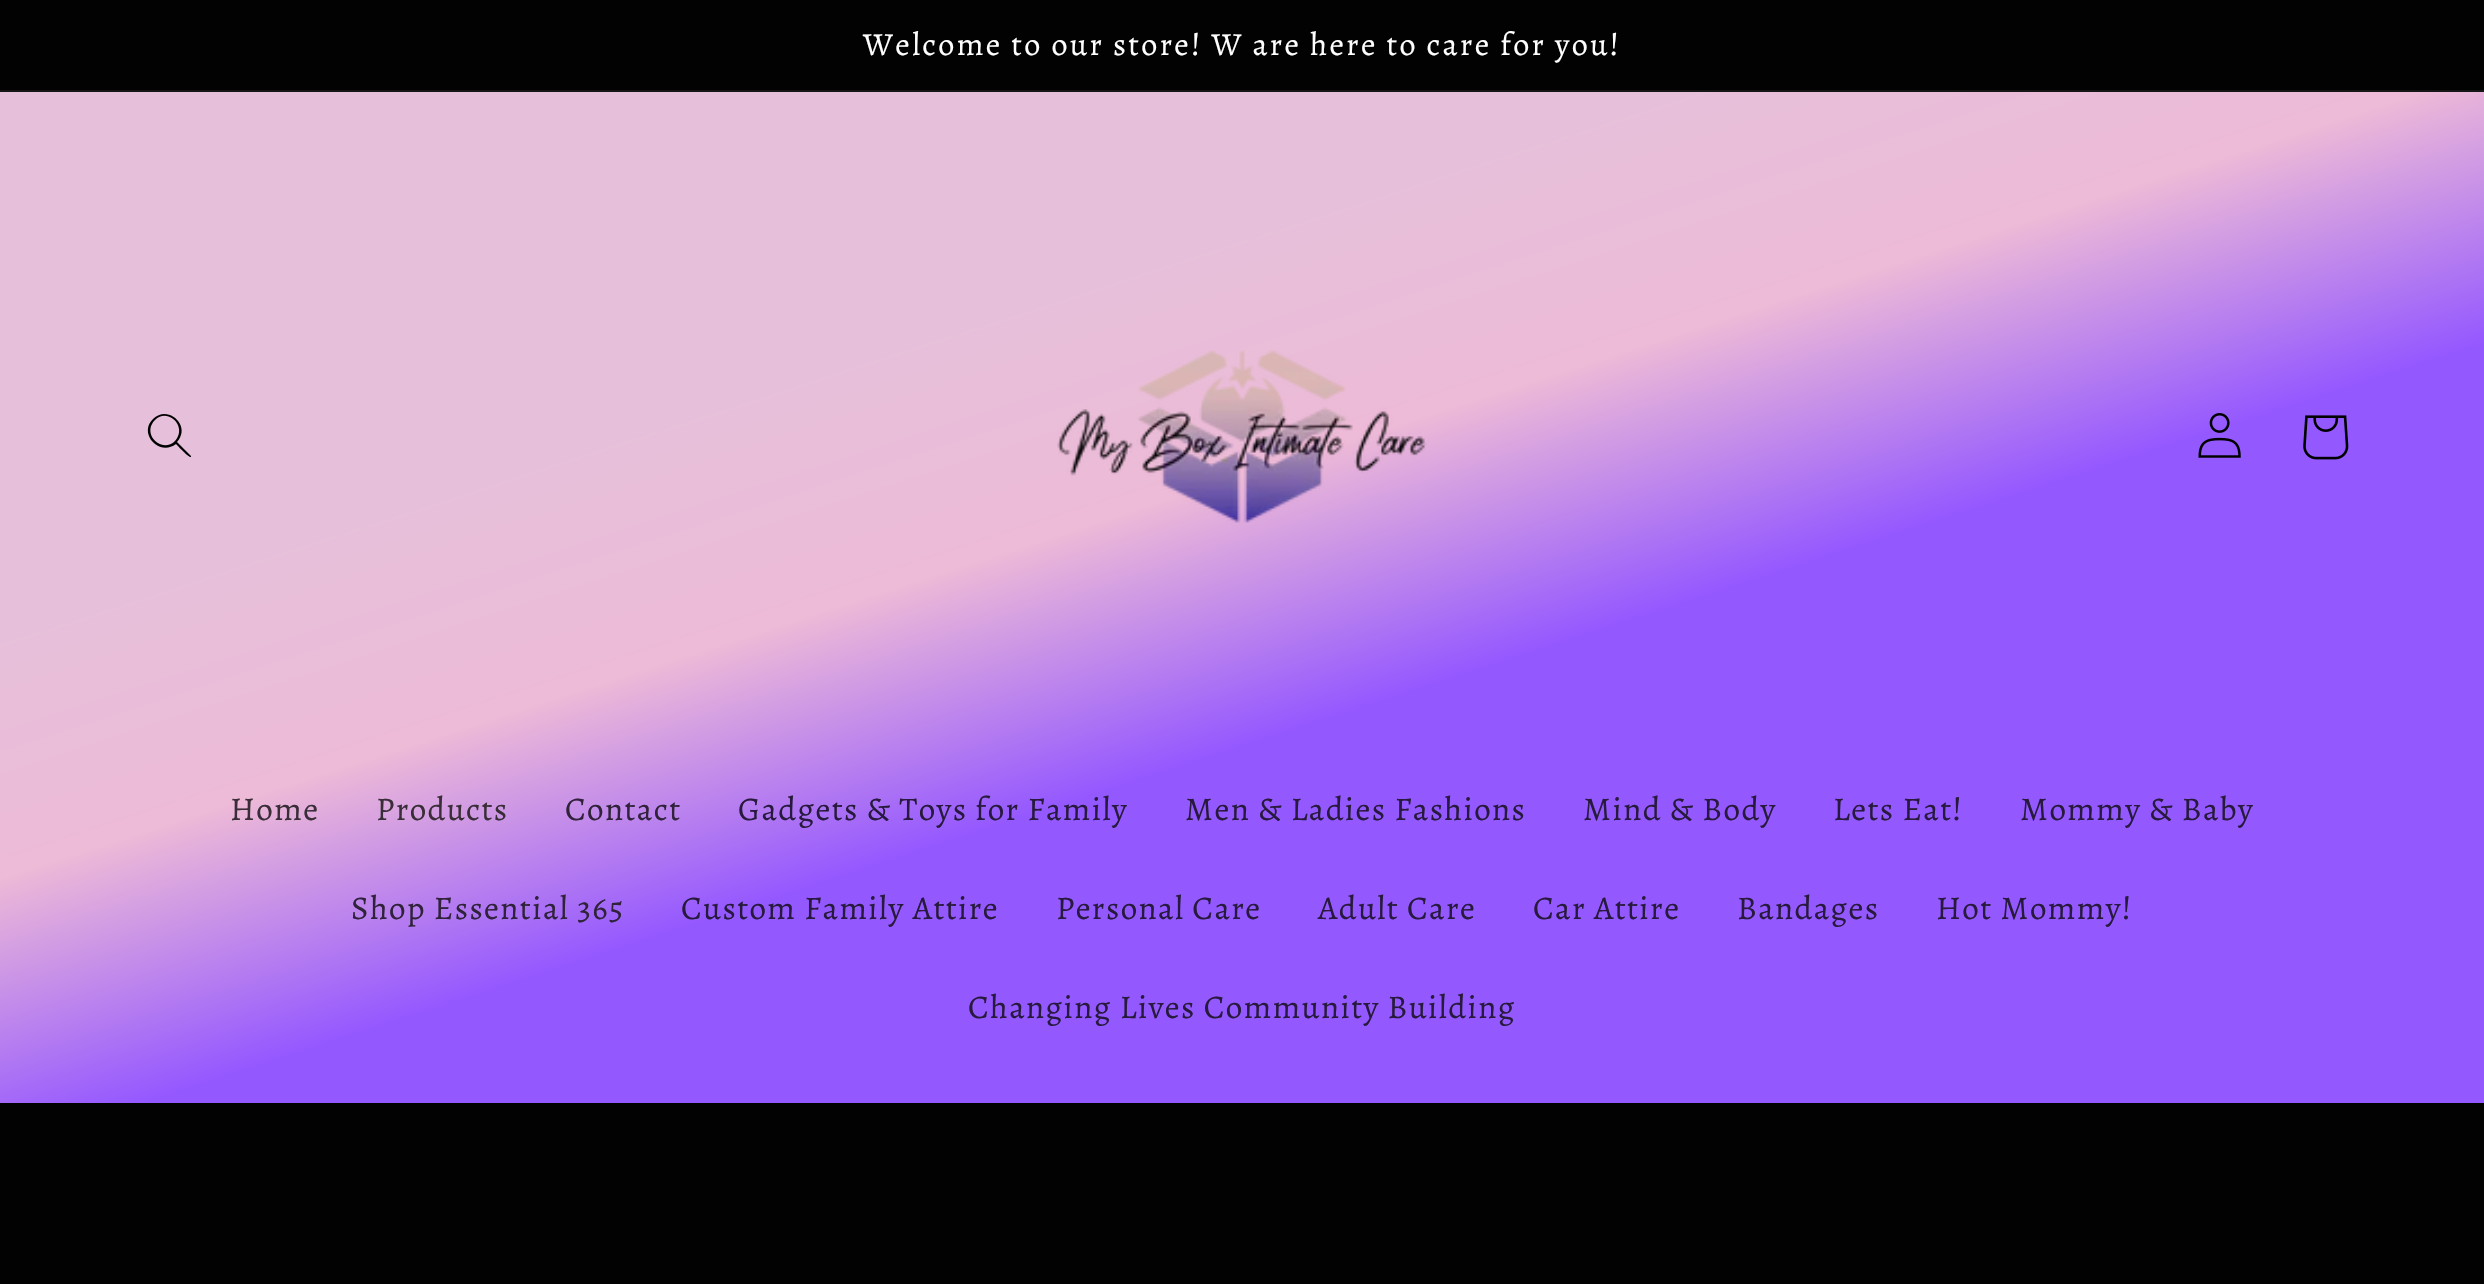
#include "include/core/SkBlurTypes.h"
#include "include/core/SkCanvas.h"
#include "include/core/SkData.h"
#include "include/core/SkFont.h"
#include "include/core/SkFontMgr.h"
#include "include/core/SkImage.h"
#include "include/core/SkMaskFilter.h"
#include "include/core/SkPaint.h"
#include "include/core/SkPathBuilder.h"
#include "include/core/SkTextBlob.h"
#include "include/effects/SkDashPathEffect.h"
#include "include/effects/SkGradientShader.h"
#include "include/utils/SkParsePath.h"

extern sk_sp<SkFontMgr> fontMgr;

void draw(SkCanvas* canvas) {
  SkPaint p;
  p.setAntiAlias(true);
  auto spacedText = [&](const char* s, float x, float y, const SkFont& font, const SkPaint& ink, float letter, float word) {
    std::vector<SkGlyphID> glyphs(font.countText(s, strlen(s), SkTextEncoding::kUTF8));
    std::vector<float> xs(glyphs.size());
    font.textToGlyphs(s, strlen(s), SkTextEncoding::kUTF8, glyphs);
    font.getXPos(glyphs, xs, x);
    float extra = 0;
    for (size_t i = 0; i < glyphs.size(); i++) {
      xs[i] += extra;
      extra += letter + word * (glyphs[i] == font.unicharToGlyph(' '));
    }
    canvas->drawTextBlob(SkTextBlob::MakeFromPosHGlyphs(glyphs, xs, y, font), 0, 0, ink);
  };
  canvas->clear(SkColorSetRGB(2, 2, 3));
  p.setColor(SkColorSetRGB(22, 22, 23));
  canvas->drawRect(SkRect::MakeLTRB(0, 90, 2484, 92), p);
  {
    const SkColor colors[] = {SkColorSetRGB(230, 192, 218), SkColorSetRGB(237, 186, 215), SkColorSetRGB(148, 88, 255)};
    const float stops[] = {0.3f, 0.42f, 0.55f};
    const SkPoint ends[] = {{935, -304}, {1549, 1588}};
    p.setShader(SkGradientShader::MakeLinear(ends, colors, stops, 3, SkTileMode::kClamp));
    p.setAlpha(255);
  }
  canvas->drawRect(SkRect::MakeLTRB(0, 92, 2484, 1103), p);
  p.setShader(nullptr);
  p.setColor(SK_ColorBLACK);
  canvas->drawPath(SkPathBuilder(SkPathFillType::kEvenOdd).moveTo(175, 441).cubicTo(162, 454, 141, 434, 155, 420).cubicTo(168, 407, 188, 427, 175, 441).close().moveTo(176, 444).cubicTo(159, 457, 138, 433, 153, 419).cubicTo(168, 404, 192, 426, 177, 442).lineTo(191, 456).lineTo(191, 457).cubicTo(189, 458, 178, 446, 176, 444).close().detach(), p);
  canvas->drawImageRect(SkImages::DeferredFromEncodedData(SkData::MakeFromFileName("images/1.png")), SkRect::MakeLTRB(1057, 350, 1427, 523), SkSamplingOptions());
  canvas->drawImageRect(SkImages::DeferredFromEncodedData(SkData::MakeFromFileName("images/2.png")), SkRect::MakeLTRB(2198, 413, 2241, 458), SkSamplingOptions());
  canvas->drawImageRect(SkImages::DeferredFromEncodedData(SkData::MakeFromFileName("images/3.png")), SkRect::MakeLTRB(2303, 415, 2349, 460), SkSamplingOptions());
  SkFont font1(fontMgr->matchFamilyStyle("Alegreya", SkFontStyle::Normal()), 32.2f);
  font1.setSubpixel(true);
  p.setColor(SK_ColorWHITE);
  spacedText("Welcome to our store! W are here to care for you!", 863, 55, font1, p, 2.35f, 0);
  SkFont font2(fontMgr->matchFamilyStyle("Alegreya", SkFontStyle::Normal()), 33.1f);
  font2.setSubpixel(true);
  p.setColor(SkColorSetRGB(57, 45, 55));
  spacedText("Home", 230, 820, font2, p, 1.4f, 0);
  spacedText("Products", 376, 820, font2, p, 1.4f, 0);
  p.setColor(SkColorSetRGB(48, 34, 59));
  spacedText("Contact", 565, 820, font2, p, 1.4f, 0);
  p.setColor(SkColorSetRGB(40, 26, 62));
  spacedText("Gadgets & Toys for Family", 738, 820, font2, p, 1.4f, 0);
  spacedText("Men & Ladies Fashions", 1185, 820, font2, p, 1.4f, 0);
  spacedText("Mind & Body", 1583, 820, font2, p, 1.4f, 0);
  spacedText("Lets Eat!", 1833, 820, font2, p, 1.4f, 0);
  spacedText("Mommy & Baby", 2020, 820, font2, p, 1.4f, 0);
  p.setColor(SkColorSetRGB(48, 34, 59));
  spacedText("Shop Essential 365", 351, 919, font2, p, 1.4f, 0);
  p.setColor(SkColorSetRGB(40, 26, 62));
  spacedText("Custom Family Attire", 681, 919, font2, p, 1.4f, 0);
  spacedText("Personal Care", 1056, 919, font2, p, 1.4f, 0);
  spacedText("Adult Care", 1318, 919, font2, p, 1.4f, 0);
  spacedText("Car Attire", 1533, 919, font2, p, 1.4f, 0);
  spacedText("Bandages", 1737, 919, font2, p, 1.4f, 0);
  spacedText("Hot Mommy!", 1936, 919, font2, p, 1.4f, 0);
  spacedText("Changing Lives Community Building", 968, 1018, font2, p, 1.4f, 0);
}
